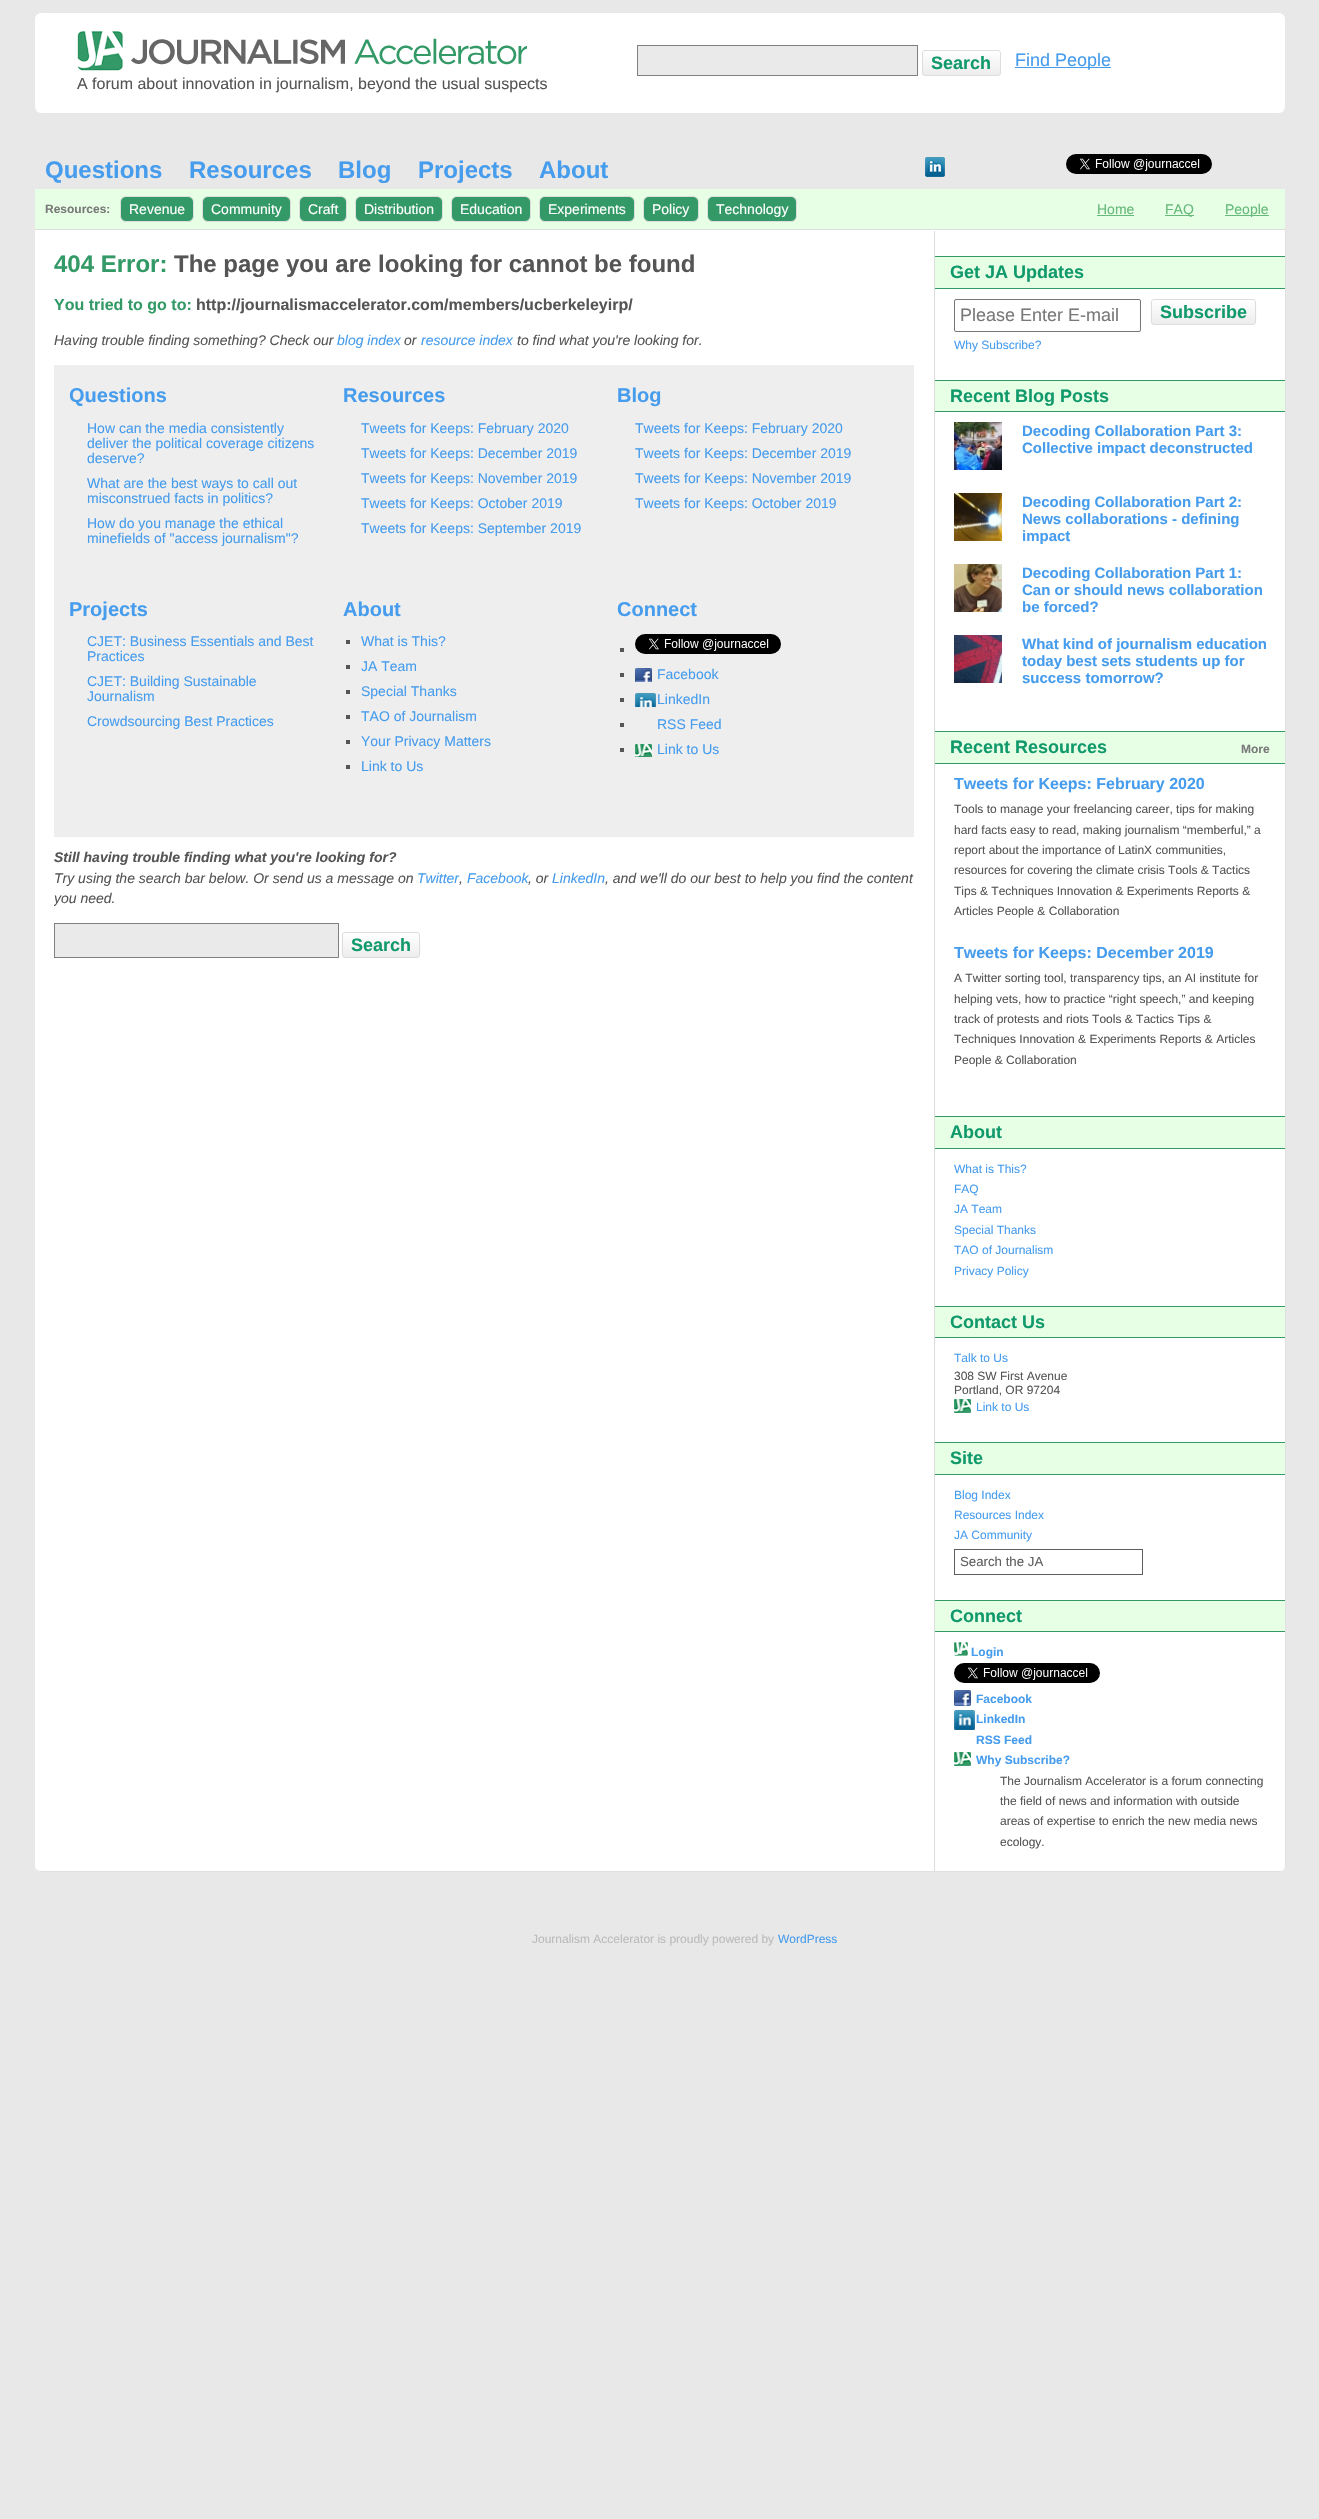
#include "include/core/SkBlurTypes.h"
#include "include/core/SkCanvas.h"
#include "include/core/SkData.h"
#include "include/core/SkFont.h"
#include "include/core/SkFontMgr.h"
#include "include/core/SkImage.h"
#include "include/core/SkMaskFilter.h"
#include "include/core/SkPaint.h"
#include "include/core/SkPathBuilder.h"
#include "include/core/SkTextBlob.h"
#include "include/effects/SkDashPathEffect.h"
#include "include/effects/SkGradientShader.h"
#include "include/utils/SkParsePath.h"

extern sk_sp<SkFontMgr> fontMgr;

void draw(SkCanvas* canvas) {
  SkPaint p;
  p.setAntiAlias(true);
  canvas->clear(SkColorSetRGB(232, 232, 232));
  p.setColor(SK_ColorWHITE);
  canvas->drawRoundRect(SkRect::MakeLTRB(35, 13, 1285, 113), 6, 6, p);
  p.setColor(SkColorSetRGB(234, 234, 234));
  canvas->drawRect(SkRect::MakeLTRB(637.5f, 45.5f, 917.5f, 75.5f), p);
  p.setStyle(SkPaint::kStroke_Style);
  p.setStrokeWidth(1);
  p.setColor(SkColorSetRGB(128, 128, 128));
  canvas->drawRect(SkRect::MakeLTRB(637.5f, 45.5f, 917.5f, 75.5f), p);
  canvas->save();
  canvas->clipPath(SkPathBuilder().moveTo(925, 50).lineTo(998, 50).cubicTo(999.5f, 50, 1001, 51.5f, 1001, 53).lineTo(1001, 73).cubicTo(1001, 74.5f, 999.5f, 76, 998, 76).lineTo(925, 76).cubicTo(923.5f, 76, 922, 74.5f, 922, 73).lineTo(922, 53).cubicTo(922, 51.5f, 923.5f, 50, 925, 50).close().detach(), true);
  p.setStyle(SkPaint::kFill_Style);
  {
    const SkColor colors[] = {SK_ColorWHITE, SkColorSetRGB(237, 237, 237)};
    const float stops[] = {0, 1};
    const SkPoint ends[] = {{962, 51}, {962, 75}};
    p.setShader(SkGradientShader::MakeLinear(ends, colors, stops, 2, SkTileMode::kClamp));
    p.setAlpha(255);
  }
  canvas->drawRect(SkRect::MakeLTRB(922, 51, 1001, 75), p);
  canvas->restore();
  p.setStyle(SkPaint::kStroke_Style);
  p.setShader(nullptr);
  p.setColor(SkColorSetRGB(221, 221, 221));
  canvas->drawRoundRect(SkRect::MakeLTRB(922.5f, 50.5f, 1000.5f, 75.5f), 2.5f, 2.5f, p);
  p.setStyle(SkPaint::kFill_Style);
  p.setColor(SkColorSetRGB(70, 156, 237));
  canvas->drawRect(SkRect::MakeLTRB(1015, 67, 1111, 68), p);
  canvas->drawImageRect(SkImages::DeferredFromEncodedData(SkData::MakeFromFileName("images/1.png")), SkRect::MakeLTRB(77, 31, 527, 71), SkSamplingOptions());
  canvas->drawImageRect(SkImages::DeferredFromEncodedData(SkData::MakeFromFileName("images/2.png")), SkRect::MakeLTRB(925, 157, 945, 177), SkSamplingOptions());
  canvas->drawImageRect(SkImages::DeferredFromEncodedData(SkData::MakeFromFileName("images/3.png")), SkRect::MakeLTRB(1066, 154, 1212, 174), SkSamplingOptions());
  p.setColor(SkColorSetRGB(231, 255, 229));
  canvas->drawRect(SkRect::MakeLTRB(35, 189, 1285, 229), p);
  p.setColor(SkColorSetRGB(221, 221, 221));
  canvas->drawRect(SkRect::MakeLTRB(35, 229, 1285, 230), p);
  p.setColor(SkColorSetRGB(51, 153, 102));
  canvas->drawRoundRect(SkRect::MakeLTRB(120.5f, 196.5f, 193.5f, 221.5f), 5.5f, 5.5f, p);
  p.setStyle(SkPaint::kStroke_Style);
  p.setColor(SkColorSetRGB(222, 222, 222));
  canvas->drawRoundRect(SkRect::MakeLTRB(120.5f, 196.5f, 193.5f, 221.5f), 5.5f, 5.5f, p);
  p.setStyle(SkPaint::kFill_Style);
  p.setColor(SkColorSetRGB(51, 153, 102));
  canvas->drawRoundRect(SkRect::MakeLTRB(202.5f, 196.5f, 290.5f, 221.5f), 5.5f, 5.5f, p);
  p.setStyle(SkPaint::kStroke_Style);
  p.setColor(SkColorSetRGB(222, 222, 222));
  canvas->drawRoundRect(SkRect::MakeLTRB(202.5f, 196.5f, 290.5f, 221.5f), 5.5f, 5.5f, p);
  p.setStyle(SkPaint::kFill_Style);
  p.setColor(SkColorSetRGB(51, 153, 102));
  canvas->drawRoundRect(SkRect::MakeLTRB(299.5f, 196.5f, 346.5f, 221.5f), 5.5f, 5.5f, p);
  p.setStyle(SkPaint::kStroke_Style);
  p.setColor(SkColorSetRGB(222, 222, 222));
  canvas->drawRoundRect(SkRect::MakeLTRB(299.5f, 196.5f, 346.5f, 221.5f), 5.5f, 5.5f, p);
  p.setStyle(SkPaint::kFill_Style);
  p.setColor(SkColorSetRGB(51, 153, 102));
  canvas->drawRoundRect(SkRect::MakeLTRB(355.5f, 196.5f, 442.5f, 221.5f), 5.5f, 5.5f, p);
  p.setStyle(SkPaint::kStroke_Style);
  p.setColor(SkColorSetRGB(222, 222, 222));
  canvas->drawRoundRect(SkRect::MakeLTRB(355.5f, 196.5f, 442.5f, 221.5f), 5.5f, 5.5f, p);
  p.setStyle(SkPaint::kFill_Style);
  p.setColor(SkColorSetRGB(51, 153, 102));
  canvas->drawRoundRect(SkRect::MakeLTRB(451.5f, 196.5f, 530.5f, 221.5f), 5.5f, 5.5f, p);
  p.setStyle(SkPaint::kStroke_Style);
  p.setColor(SkColorSetRGB(222, 222, 222));
  canvas->drawRoundRect(SkRect::MakeLTRB(451.5f, 196.5f, 530.5f, 221.5f), 5.5f, 5.5f, p);
  p.setStyle(SkPaint::kFill_Style);
  p.setColor(SkColorSetRGB(51, 153, 102));
  canvas->drawRoundRect(SkRect::MakeLTRB(539.5f, 196.5f, 634.5f, 221.5f), 5.5f, 5.5f, p);
  p.setStyle(SkPaint::kStroke_Style);
  p.setColor(SkColorSetRGB(222, 222, 222));
  canvas->drawRoundRect(SkRect::MakeLTRB(539.5f, 196.5f, 634.5f, 221.5f), 5.5f, 5.5f, p);
  p.setStyle(SkPaint::kFill_Style);
  p.setColor(SkColorSetRGB(51, 153, 102));
  canvas->drawRoundRect(SkRect::MakeLTRB(643.5f, 196.5f, 698.5f, 221.5f), 5.5f, 5.5f, p);
  p.setStyle(SkPaint::kStroke_Style);
  p.setColor(SkColorSetRGB(222, 222, 222));
  canvas->drawRoundRect(SkRect::MakeLTRB(643.5f, 196.5f, 698.5f, 221.5f), 5.5f, 5.5f, p);
  p.setStyle(SkPaint::kFill_Style);
  p.setColor(SkColorSetRGB(51, 153, 102));
  canvas->drawRoundRect(SkRect::MakeLTRB(707.5f, 196.5f, 796.5f, 221.5f), 5.5f, 5.5f, p);
  p.setStyle(SkPaint::kStroke_Style);
  p.setColor(SkColorSetRGB(222, 222, 222));
  canvas->drawRoundRect(SkRect::MakeLTRB(707.5f, 196.5f, 796.5f, 221.5f), 5.5f, 5.5f, p);
  p.setStyle(SkPaint::kFill_Style);
  p.setColor(SkColorSetRGB(102, 185, 122));
  canvas->drawRect(SkRect::MakeLTRB(1097, 215, 1134, 216), p);
  canvas->drawRect(SkRect::MakeLTRB(1165, 215, 1194, 216), p);
  canvas->drawRect(SkRect::MakeLTRB(1225, 215, 1269, 216), p);
  p.setColor(SK_ColorWHITE);
  canvas->drawPath(SkPathBuilder().moveTo(35, 230).lineTo(1286, 230).lineTo(1286, 1866).cubicTo(1286, 1869.5f, 1283.5f, 1872, 1280, 1872).lineTo(41, 1872).cubicTo(37.5f, 1872, 35, 1869.5f, 35, 1866).close().detach(), p);
  p.setColor(SkColorSetRGB(224, 224, 224));
  canvas->drawPath(SkPathBuilder(SkPathFillType::kEvenOdd).moveTo(35, 230).lineTo(1286, 230).lineTo(1286, 1866).cubicTo(1286, 1869, 1283, 1872, 1280, 1872).lineTo(41, 1872).cubicTo(38, 1872, 35, 1869, 35, 1866).close().moveTo(35, 230).lineTo(1285, 230).lineTo(1285, 1866).cubicTo(1285, 1869, 1283, 1871, 1280, 1871).lineTo(41, 1871).cubicTo(38, 1871, 35, 1869, 35, 1866).close().detach(), p);
  p.setColor(SkColorSetRGB(238, 238, 238));
  canvas->drawRect(SkRect::MakeLTRB(54, 365, 914, 837), p);
  p.setColor(SkColorSetRGB(85, 85, 85));
  canvas->drawRect(SkRect::MakeLTRB(346, 640, 350, 644), p);
  canvas->drawRect(SkRect::MakeLTRB(346, 665, 350, 669), p);
  canvas->drawRect(SkRect::MakeLTRB(346, 690, 350, 694), p);
  canvas->drawRect(SkRect::MakeLTRB(346, 715, 350, 719), p);
  canvas->drawRect(SkRect::MakeLTRB(346, 740, 350, 744), p);
  canvas->drawRect(SkRect::MakeLTRB(346, 765, 350, 769), p);
  canvas->drawRect(SkRect::MakeLTRB(620, 648, 624, 652), p);
  canvas->drawImageRect(SkImages::DeferredFromEncodedData(SkData::MakeFromFileName("images/4.png")), SkRect::MakeLTRB(635, 634, 781, 654), SkSamplingOptions());
  canvas->drawImageRect(SkImages::DeferredFromEncodedData(SkData::MakeFromFileName("images/5.png")), SkRect::MakeLTRB(635, 668, 652, 682), SkSamplingOptions());
  canvas->drawRect(SkRect::MakeLTRB(620, 673, 624, 677), p);
  canvas->drawImageRect(SkImages::DeferredFromEncodedData(SkData::MakeFromFileName("images/6.png")), SkRect::MakeLTRB(635, 693, 656, 707), SkSamplingOptions());
  canvas->drawRect(SkRect::MakeLTRB(620, 698, 624, 702), p);
  canvas->drawRect(SkRect::MakeLTRB(620, 723, 624, 727), p);
  canvas->drawImageRect(SkImages::DeferredFromEncodedData(SkData::MakeFromFileName("images/7.png")), SkRect::MakeLTRB(635, 744, 652, 757), SkSamplingOptions());
  canvas->drawRect(SkRect::MakeLTRB(620, 748, 624, 752), p);
  p.setColor(SkColorSetRGB(234, 234, 234));
  canvas->drawRect(SkRect::MakeLTRB(54.5f, 923.5f, 338.5f, 957.5f), p);
  p.setStyle(SkPaint::kStroke_Style);
  p.setColor(SkColorSetRGB(128, 128, 128));
  canvas->drawRect(SkRect::MakeLTRB(54.5f, 923.5f, 338.5f, 957.5f), p);
  p.setStyle(SkPaint::kFill_Style);
  {
    const SkColor colors[] = {SK_ColorWHITE, SkColorSetRGB(237, 237, 237)};
    const float stops[] = {0, 1};
    const SkPoint ends[] = {{381, 933}, {381, 957}};
    p.setShader(SkGradientShader::MakeLinear(ends, colors, stops, 2, SkTileMode::kClamp));
    p.setAlpha(255);
  }
  canvas->drawPath(SkPathBuilder().moveTo(342, 935).cubicTo(342, 939, 341, 955, 343, 957).lineTo(419, 957).cubicTo(421, 955, 421, 935, 419, 933).lineTo(343, 933).close().detach(), p);
  p.setStyle(SkPaint::kStroke_Style);
  p.setShader(nullptr);
  p.setColor(SkColorSetRGB(221, 221, 221));
  canvas->drawRoundRect(SkRect::MakeLTRB(342.5f, 932.5f, 419.5f, 957.5f), 2.5f, 2.5f, p);
  p.setStyle(SkPaint::kFill_Style);
  canvas->drawRect(SkRect::MakeLTRB(934, 231, 935, 1871), p);
  p.setColor(SkColorSetRGB(231, 255, 229));
  canvas->drawRect(SkRect::MakeLTRB(935, 257, 1285, 288), p);
  p.setColor(SkColorSetRGB(51, 153, 102));
  canvas->drawRect(SkRect::MakeLTRB(935, 256, 1285, 257), p);
  canvas->drawRect(SkRect::MakeLTRB(935, 288, 1285, 289), p);
  p.setStyle(SkPaint::kStroke_Style);
  p.setColor(SkColorSetRGB(118, 118, 118));
  canvas->drawRoundRect(SkRect::MakeLTRB(954.5f, 299.5f, 1140.5f, 331.5f), 1.5f, 1.5f, p);
  p.setStyle(SkPaint::kFill_Style);
  {
    const SkColor colors[] = {SK_ColorWHITE, SkColorSetRGB(237, 237, 237)};
    const float stops[] = {0, 1};
    const SkPoint ends[] = {{1204, 300}, {1204, 324}};
    p.setShader(SkGradientShader::MakeLinear(ends, colors, stops, 2, SkTileMode::kClamp));
    p.setAlpha(255);
  }
  canvas->drawPath(SkPathBuilder().moveTo(1151, 302).cubicTo(1151, 306, 1150, 322, 1152, 324).lineTo(1255, 324).cubicTo(1257, 322, 1257, 302, 1255, 300).lineTo(1152, 300).close().detach(), p);
  p.setStyle(SkPaint::kStroke_Style);
  p.setShader(nullptr);
  p.setColor(SkColorSetRGB(221, 221, 221));
  canvas->drawRoundRect(SkRect::MakeLTRB(1151.5f, 299.5f, 1255.5f, 324.5f), 2.5f, 2.5f, p);
  p.setStyle(SkPaint::kFill_Style);
  p.setColor(SkColorSetRGB(231, 255, 229));
  canvas->drawRect(SkRect::MakeLTRB(935, 381, 1285, 411), p);
  p.setColor(SkColorSetRGB(51, 153, 102));
  canvas->drawRect(SkRect::MakeLTRB(935, 380, 1285, 381), p);
  canvas->drawRect(SkRect::MakeLTRB(935, 411, 1285, 412), p);
  canvas->drawImageRect(SkImages::DeferredFromEncodedData(SkData::MakeFromFileName("images/8.png")), SkRect::MakeLTRB(954, 422, 1002, 470), SkSamplingOptions());
  canvas->drawImageRect(SkImages::DeferredFromEncodedData(SkData::MakeFromFileName("images/9.png")), SkRect::MakeLTRB(954, 493, 1002, 541), SkSamplingOptions());
  canvas->drawImageRect(SkImages::DeferredFromEncodedData(SkData::MakeFromFileName("images/10.png")), SkRect::MakeLTRB(954, 564, 1002, 612), SkSamplingOptions());
  canvas->drawImageRect(SkImages::DeferredFromEncodedData(SkData::MakeFromFileName("images/11.png")), SkRect::MakeLTRB(954, 635, 1002, 683), SkSamplingOptions());
  p.setColor(SkColorSetRGB(231, 255, 229));
  canvas->drawRect(SkRect::MakeLTRB(935, 732, 1285, 763), p);
  p.setColor(SkColorSetRGB(51, 153, 102));
  canvas->drawRect(SkRect::MakeLTRB(935, 731, 1285, 732), p);
  canvas->drawRect(SkRect::MakeLTRB(935, 763, 1285, 764), p);
  p.setColor(SkColorSetRGB(231, 255, 229));
  canvas->drawRect(SkRect::MakeLTRB(935, 1117, 1285, 1148), p);
  p.setColor(SkColorSetRGB(51, 153, 102));
  canvas->drawRect(SkRect::MakeLTRB(935, 1116, 1285, 1117), p);
  canvas->drawRect(SkRect::MakeLTRB(935, 1148, 1285, 1149), p);
  p.setColor(SkColorSetRGB(231, 255, 229));
  canvas->drawRect(SkRect::MakeLTRB(935, 1307, 1285, 1337), p);
  p.setColor(SkColorSetRGB(51, 153, 102));
  canvas->drawRect(SkRect::MakeLTRB(935, 1306, 1285, 1307), p);
  canvas->drawRect(SkRect::MakeLTRB(935, 1337, 1285, 1338), p);
  canvas->drawImageRect(SkImages::DeferredFromEncodedData(SkData::MakeFromFileName("images/12.png")), SkRect::MakeLTRB(954, 1399, 971, 1413), SkSamplingOptions());
  p.setColor(SkColorSetRGB(231, 255, 229));
  canvas->drawRect(SkRect::MakeLTRB(935, 1443, 1285, 1474), p);
  p.setColor(SkColorSetRGB(51, 153, 102));
  canvas->drawRect(SkRect::MakeLTRB(935, 1442, 1285, 1443), p);
  canvas->drawRect(SkRect::MakeLTRB(935, 1474, 1285, 1475), p);
  p.setStyle(SkPaint::kStroke_Style);
  p.setColor(SkColorSetRGB(94, 94, 94));
  canvas->drawRect(SkRect::MakeLTRB(954.5f, 1549.5f, 1142.5f, 1574.5f), p);
  p.setStyle(SkPaint::kFill_Style);
  p.setColor(SkColorSetRGB(231, 255, 229));
  canvas->drawRect(SkRect::MakeLTRB(935, 1601, 1285, 1631), p);
  p.setColor(SkColorSetRGB(51, 153, 102));
  canvas->drawRect(SkRect::MakeLTRB(935, 1600, 1285, 1601), p);
  canvas->drawRect(SkRect::MakeLTRB(935, 1631, 1285, 1632), p);
  canvas->drawImageRect(SkImages::DeferredFromEncodedData(SkData::MakeFromFileName("images/13.png")), SkRect::MakeLTRB(954, 1642, 968, 1656), SkSamplingOptions());
  canvas->drawImageRect(SkImages::DeferredFromEncodedData(SkData::MakeFromFileName("images/14.png")), SkRect::MakeLTRB(954, 1663, 1100, 1683), SkSamplingOptions());
  canvas->drawImageRect(SkImages::DeferredFromEncodedData(SkData::MakeFromFileName("images/15.png")), SkRect::MakeLTRB(954, 1690, 971, 1706), SkSamplingOptions());
  canvas->drawImageRect(SkImages::DeferredFromEncodedData(SkData::MakeFromFileName("images/16.png")), SkRect::MakeLTRB(954, 1710, 975, 1730), SkSamplingOptions());
  canvas->drawImageRect(SkImages::DeferredFromEncodedData(SkData::MakeFromFileName("images/12.png")), SkRect::MakeLTRB(954, 1752, 971, 1766), SkSamplingOptions());
  SkFont font1(fontMgr->matchFamilyStyle("Liberation Sans", SkFontStyle::Bold()), 18);
  font1.setSubpixel(true);
  p.setColor(SkColorSetRGB(16, 153, 107));
  canvas->drawString("Search", 931, 69, font1, p);
  SkFont font2(fontMgr->matchFamilyStyle("Liberation Sans", SkFontStyle::Normal()), 18);
  font2.setSubpixel(true);
  p.setColor(SkColorSetRGB(70, 156, 237));
  canvas->drawString("Find People", 1015, 66, font2, p);
  SkFont font3(fontMgr->matchFamilyStyle("Liberation Sans", SkFontStyle::Normal()), 16);
  font3.setSubpixel(true);
  p.setColor(SkColorSetRGB(85, 85, 85));
  canvas->drawString("A forum about innovation in journalism, beyond the usual suspects", 77, 89, font3, p);
  SkFont font4(fontMgr->matchFamilyStyle("Liberation Sans", SkFontStyle::Bold()), 24);
  font4.setSubpixel(true);
  p.setColor(SkColorSetRGB(70, 156, 237));
  canvas->drawString("Questions", 45, 178, font4, p);
  canvas->drawString("Resources", 189, 178, font4, p);
  canvas->drawString("Blog", 338, 178, font4, p);
  canvas->drawString("Projects", 418, 178, font4, p);
  canvas->drawString("About", 539, 178, font4, p);
  SkFont font5(fontMgr->matchFamilyStyle("Liberation Sans", SkFontStyle::Bold()), 12);
  font5.setSubpixel(true);
  p.setColor(SkColorSetRGB(121, 121, 121));
  canvas->drawString("Resources:", 45, 213, font5, p);
  SkFont font6(fontMgr->matchFamilyStyle("Liberation Sans", SkFontStyle::Normal()), 14);
  font6.setSubpixel(true);
  p.setColor(SK_ColorWHITE);
  canvas->drawString("Revenue", 129, 214, font6, p);
  canvas->drawString("Community", 211, 214, font6, p);
  canvas->drawString("Craft", 308, 214, font6, p);
  canvas->drawString("Distribution", 364, 214, font6, p);
  canvas->drawString("Education", 460, 214, font6, p);
  canvas->drawString("Experiments", 548, 214, font6, p);
  canvas->drawString("Policy", 652, 214, font6, p);
  canvas->drawString("Technology", 716, 214, font6, p);
  p.setColor(SkColorSetRGB(102, 185, 122));
  canvas->drawString("Home", 1097, 214, font6, p);
  canvas->drawString("FAQ", 1165, 214, font6, p);
  canvas->drawString("People", 1225, 214, font6, p);
  canvas->save();
  canvas->clipRect(SkRect::MakeLTRB(54, 249, 914, 958));
  p.setColor(SkColorSetRGB(51, 153, 102));
  canvas->drawString("404 Error:", 54, 272, font4, p);
  canvas->restore();
  p.setColor(SkColorSetRGB(85, 85, 85));
  canvas->drawString("The page you are looking for cannot be found", 174, 272, font4, p);
  SkFont font7(fontMgr->matchFamilyStyle("Liberation Sans", SkFontStyle::Bold()), 16);
  font7.setSubpixel(true);
  p.setColor(SkColorSetRGB(51, 153, 102));
  canvas->drawString("You tried to go to:", 54, 310, font7, p);
  p.setColor(SkColorSetRGB(85, 85, 85));
  canvas->drawString("http://journalismaccelerator.com/members/ucberkeleyirp/", 196, 310, font7, p);
  SkFont font8(fontMgr->matchFamilyStyle("Liberation Sans", SkFontStyle::Italic()), 14);
  font8.setSubpixel(true);
  canvas->drawString("Having trouble finding something? Check our", 54, 345, font8, p);
  p.setColor(SkColorSetRGB(70, 156, 237));
  canvas->drawString("blog index", 337, 345, font8, p);
  p.setColor(SkColorSetRGB(85, 85, 85));
  canvas->drawString("or", 404, 345, font8, p);
  p.setColor(SkColorSetRGB(70, 156, 237));
  canvas->drawString("resource index", 421, 345, font8, p);
  p.setColor(SkColorSetRGB(85, 85, 85));
  canvas->drawString("to find what you're looking for.", 517, 345, font8, p);
  SkFont font9(fontMgr->matchFamilyStyle("Liberation Sans", SkFontStyle::Bold()), 20);
  font9.setSubpixel(true);
  p.setColor(SkColorSetRGB(70, 156, 237));
  canvas->drawString("Questions", 69, 402, font9, p);
  canvas->drawString("How can the media consistently", 87, 433, font6, p);
  canvas->drawString("deliver the political coverage citizens", 87, 448, font6, p);
  canvas->drawString("deserve?", 87, 463, font6, p);
  canvas->drawString("What are the best ways to call out", 87, 488, font6, p);
  canvas->drawString("misconstrued facts in politics?", 87, 503, font6, p);
  canvas->drawString("How do you manage the ethical", 87, 528, font6, p);
  canvas->drawString("minefields of \"access journalism\"?", 87, 543, font6, p);
  canvas->drawString("Resources", 343, 402, font9, p);
  canvas->drawString("Tweets for Keeps: February 2020", 361, 433, font6, p);
  canvas->drawString("Tweets for Keeps: December 2019", 361, 458, font6, p);
  canvas->drawString("Tweets for Keeps: November 2019", 361, 483, font6, p);
  canvas->drawString("Tweets for Keeps: October 2019", 361, 508, font6, p);
  canvas->drawString("Tweets for Keeps: September 2019", 361, 533, font6, p);
  canvas->drawString("Blog", 617, 402, font9, p);
  canvas->drawString("Tweets for Keeps: February 2020", 635, 433, font6, p);
  canvas->drawString("Tweets for Keeps: December 2019", 635, 458, font6, p);
  canvas->drawString("Tweets for Keeps: November 2019", 635, 483, font6, p);
  canvas->drawString("Tweets for Keeps: October 2019", 635, 508, font6, p);
  canvas->drawString("Projects", 69, 616, font9, p);
  canvas->drawString("CJET: Business Essentials and Best", 87, 646, font6, p);
  canvas->drawString("Practices", 87, 661, font6, p);
  canvas->drawString("CJET: Building Sustainable", 87, 686, font6, p);
  canvas->drawString("Journalism", 87, 701, font6, p);
  canvas->drawString("Crowdsourcing Best Practices", 87, 726, font6, p);
  canvas->drawString("About", 343, 616, font9, p);
  canvas->drawString("What is This?", 361, 646, font6, p);
  canvas->drawString("JA Team", 361, 671, font6, p);
  canvas->drawString("Special Thanks", 361, 696, font6, p);
  canvas->drawString("TAO of Journalism", 361, 721, font6, p);
  canvas->drawString("Your Privacy Matters", 361, 746, font6, p);
  canvas->drawString("Link to Us", 361, 771, font6, p);
  canvas->drawString("Connect", 617, 616, font9, p);
  canvas->drawString("Facebook", 657, 679, font6, p);
  canvas->drawString("LinkedIn", 657, 704, font6, p);
  canvas->drawString("RSS Feed", 657, 729, font6, p);
  canvas->drawString("Link to Us", 657, 754, font6, p);
  SkFont font10(fontMgr->matchFamilyStyle("Liberation Sans", SkFontStyle::BoldItalic()), 14);
  font10.setSubpixel(true);
  p.setColor(SkColorSetRGB(85, 85, 85));
  canvas->drawString("Still having trouble finding what you're looking for?", 54, 862, font10, p);
  canvas->drawString("Try using the search bar below. Or send us a message on", 54, 883, font8, p);
  p.setColor(SkColorSetRGB(70, 156, 237));
  canvas->drawString("Twitter", 417, 883, font8, p);
  p.setColor(SkColorSetRGB(85, 85, 85));
  canvas->drawString(",", 459, 883, font8, p);
  p.setColor(SkColorSetRGB(70, 156, 237));
  canvas->drawString("Facebook", 467, 883, font8, p);
  p.setColor(SkColorSetRGB(85, 85, 85));
  canvas->drawString(", or", 528, 883, font8, p);
  p.setColor(SkColorSetRGB(70, 156, 237));
  canvas->drawString("LinkedIn", 552, 883, font8, p);
  p.setColor(SkColorSetRGB(85, 85, 85));
  canvas->drawString(", and we'll do our best to help you find the content", 605, 883, font8, p);
  canvas->save();
  canvas->clipRect(SkRect::MakeLTRB(54, 249, 914, 958));
  canvas->drawString("you need.", 54, 903, font8, p);
  canvas->restore();
  p.setColor(SkColorSetRGB(16, 153, 107));
  canvas->drawString("Search", 351, 951, font1, p);
  canvas->drawString("Get JA Updates", 950, 278, font1, p);
  p.setColor(SkColorSetRGB(121, 121, 121));
  canvas->drawString("Please Enter E-mail", 960, 321, font2, p);
  p.setColor(SkColorSetRGB(16, 153, 107));
  canvas->drawString("Subscribe", 1160, 318, font1, p);
  SkFont font11(fontMgr->matchFamilyStyle("Liberation Sans", SkFontStyle::Normal()), 12);
  font11.setSubpixel(true);
  p.setColor(SkColorSetRGB(70, 156, 237));
  canvas->drawString("Why Subscribe?", 954, 349, font11, p);
  p.setColor(SkColorSetRGB(16, 153, 107));
  canvas->drawString("Recent Blog Posts", 950, 402, font1, p);
  SkFont font12(fontMgr->matchFamilyStyle("Liberation Sans", SkFontStyle::Bold()), 15);
  font12.setSubpixel(true);
  p.setColor(SkColorSetRGB(70, 156, 237));
  canvas->drawString("Decoding Collaboration Part 3:", 1022, 436, font12, p);
  canvas->drawString("Collective impact deconstructed", 1022, 453, font12, p);
  canvas->drawString("Decoding Collaboration Part 2:", 1022, 507, font12, p);
  canvas->drawString("News collaborations - defining", 1022, 524, font12, p);
  canvas->drawString("impact", 1022, 541, font12, p);
  canvas->drawString("Decoding Collaboration Part 1:", 1022, 578, font12, p);
  canvas->drawString("Can or should news collaboration", 1022, 595, font12, p);
  canvas->drawString("be forced?", 1022, 612, font12, p);
  canvas->drawString("What kind of journalism education", 1022, 649, font12, p);
  canvas->drawString("today best sets students up for", 1022, 666, font12, p);
  canvas->drawString("success tomorrow?", 1022, 683, font12, p);
  p.setColor(SkColorSetRGB(16, 153, 107));
  canvas->drawString("Recent Resources", 950, 753, font1, p);
  p.setColor(SkColorSetRGB(121, 121, 121));
  canvas->drawString("More", 1241, 753, font5, p);
  p.setColor(SkColorSetRGB(70, 156, 237));
  canvas->drawString("Tweets for Keeps: February 2020", 954, 789, font7, p);
  p.setColor(SkColorSetRGB(85, 85, 85));
  canvas->drawString("Tools to manage your freelancing career, tips for making", 954, 813, font11, p);
  canvas->drawString("hard facts easy to read, making journalism “memberful,” a", 954, 834, font11, p);
  canvas->drawString("report about the importance of LatinX communities,", 954, 854, font11, p);
  canvas->drawString("resources for covering the climate crisis Tools & Tactics", 954, 874, font11, p);
  canvas->drawString("Tips & Techniques Innovation & Experiments Reports &", 954, 895, font11, p);
  canvas->drawString("Articles People & Collaboration", 954, 915, font11, p);
  p.setColor(SkColorSetRGB(70, 156, 237));
  canvas->drawString("Tweets for Keeps: December 2019", 954, 958, font7, p);
  p.setColor(SkColorSetRGB(85, 85, 85));
  canvas->drawString("A Twitter sorting tool, transparency tips, an AI institute for", 954, 982, font11, p);
  canvas->drawString("helping vets, how to practice “right speech,” and keeping", 954, 1003, font11, p);
  canvas->drawString("track of protests and riots Tools & Tactics Tips &", 954, 1023, font11, p);
  canvas->drawString("Techniques Innovation & Experiments Reports & Articles", 954, 1043, font11, p);
  canvas->drawString("People & Collaboration", 954, 1064, font11, p);
  p.setColor(SkColorSetRGB(16, 153, 107));
  canvas->drawString("About", 950, 1138, font1, p);
  p.setColor(SkColorSetRGB(70, 156, 237));
  canvas->drawString("What is This?", 954, 1173, font11, p);
  canvas->drawString("FAQ", 954, 1193, font11, p);
  canvas->drawString("JA Team", 954, 1213, font11, p);
  canvas->drawString("Special Thanks", 954, 1234, font11, p);
  canvas->drawString("TAO of Journalism", 954, 1254, font11, p);
  canvas->drawString("Privacy Policy", 954, 1275, font11, p);
  p.setColor(SkColorSetRGB(16, 153, 107));
  canvas->drawString("Contact Us", 950, 1328, font1, p);
  p.setColor(SkColorSetRGB(70, 156, 237));
  canvas->drawString("Talk to Us", 954, 1362, font11, p);
  p.setColor(SkColorSetRGB(85, 85, 85));
  canvas->drawString("308 SW First Avenue", 954, 1380, font11, p);
  canvas->drawString("Portland, OR 97204", 954, 1394, font11, p);
  p.setColor(SkColorSetRGB(70, 156, 237));
  canvas->drawString("Link to Us", 976, 1411, font11, p);
  p.setColor(SkColorSetRGB(16, 153, 107));
  canvas->drawString("Site", 950, 1464, font1, p);
  p.setColor(SkColorSetRGB(70, 156, 237));
  canvas->drawString("Blog Index", 954, 1499, font11, p);
  canvas->drawString("Resources Index", 954, 1519, font11, p);
  canvas->drawString("JA Community", 954, 1539, font11, p);
  SkFont font13(fontMgr->matchFamilyStyle("Liberation Sans", SkFontStyle::Normal()), 13.25f);
  font13.setSubpixel(true);
  p.setColor(SkColorSetRGB(94, 94, 94));
  canvas->drawString("Search the JA", 960, 1566, font13, p);
  p.setColor(SkColorSetRGB(16, 153, 107));
  canvas->drawString("Connect", 950, 1622, font1, p);
  p.setColor(SkColorSetRGB(70, 156, 237));
  canvas->drawString("Login", 971, 1656, font5, p);
  canvas->drawString("Facebook", 976, 1703, font5, p);
  canvas->drawString("LinkedIn", 976, 1723, font5, p);
  canvas->drawString("RSS Feed", 976, 1744, font5, p);
  canvas->drawString("Why Subscribe?", 976, 1764, font5, p);
  p.setColor(SkColorSetRGB(85, 85, 85));
  canvas->drawString("The Journalism Accelerator is a forum connecting", 1000, 1785, font11, p);
  canvas->drawString("the field of news and information with outside", 1000, 1805, font11, p);
  canvas->drawString("areas of expertise to enrich the new media news", 1000, 1825, font11, p);
  canvas->drawString("ecology.", 1000, 1846, font11, p);
  p.setColor(SkColorSetRGB(187, 187, 187));
  canvas->drawString("Journalism Accelerator is proudly powered by", 532, 1943, font11, p);
  p.setColor(SkColorSetRGB(70, 156, 237));
  canvas->drawString("WordPress", 778, 1943, font11, p);
}
